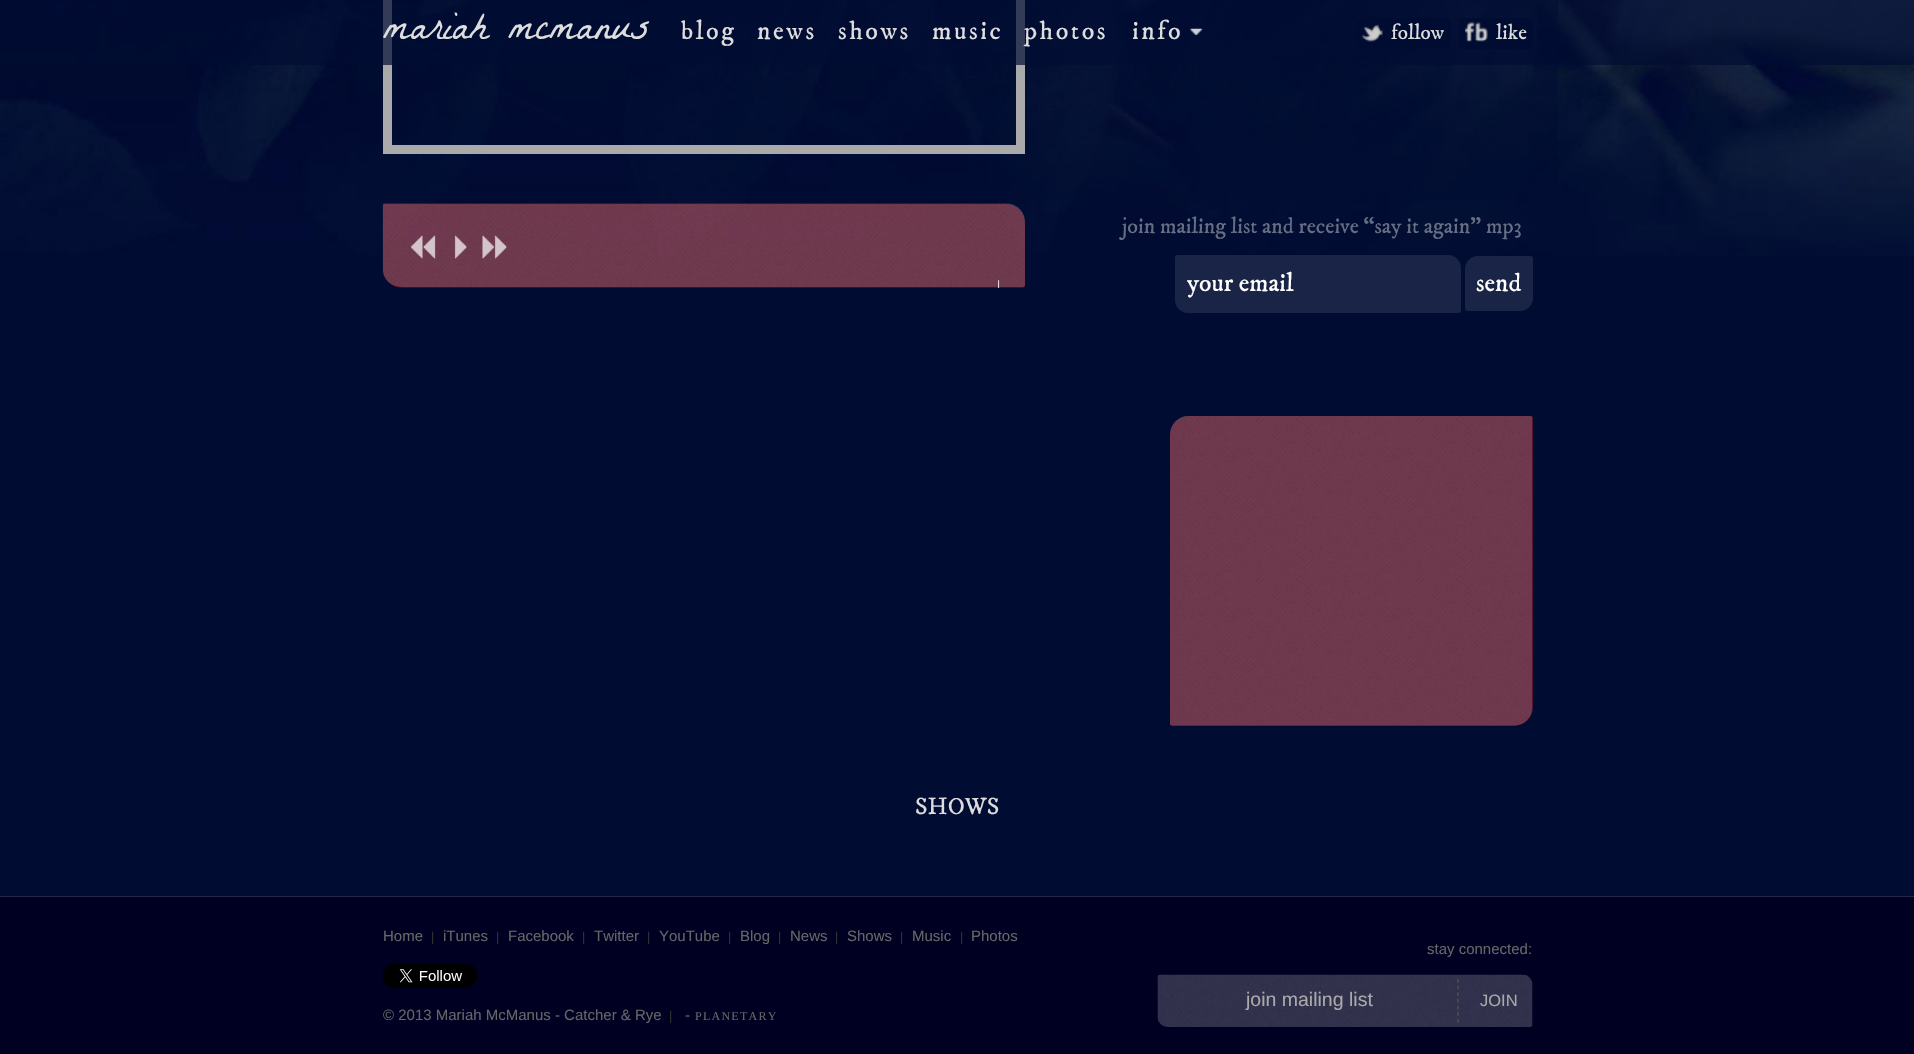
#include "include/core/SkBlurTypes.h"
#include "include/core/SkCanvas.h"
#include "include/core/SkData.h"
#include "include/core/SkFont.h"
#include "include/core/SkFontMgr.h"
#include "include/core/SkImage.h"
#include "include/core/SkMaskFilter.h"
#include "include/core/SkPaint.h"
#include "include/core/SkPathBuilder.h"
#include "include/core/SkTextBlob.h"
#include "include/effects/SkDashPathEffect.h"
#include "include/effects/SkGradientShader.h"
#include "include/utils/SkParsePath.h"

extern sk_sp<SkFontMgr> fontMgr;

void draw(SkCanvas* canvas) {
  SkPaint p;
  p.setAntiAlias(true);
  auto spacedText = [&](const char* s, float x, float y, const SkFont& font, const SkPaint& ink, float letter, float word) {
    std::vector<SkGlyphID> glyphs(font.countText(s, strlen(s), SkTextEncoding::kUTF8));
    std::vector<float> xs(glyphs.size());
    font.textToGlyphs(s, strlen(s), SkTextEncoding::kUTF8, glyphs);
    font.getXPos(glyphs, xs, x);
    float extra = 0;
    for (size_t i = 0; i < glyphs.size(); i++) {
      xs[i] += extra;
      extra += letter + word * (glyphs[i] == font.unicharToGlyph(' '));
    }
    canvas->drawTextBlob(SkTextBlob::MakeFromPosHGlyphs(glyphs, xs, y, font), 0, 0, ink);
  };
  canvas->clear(SkColorSetRGB(0, 12, 50));
  canvas->drawImageRect(SkImages::DeferredFromEncodedData(SkData::MakeFromFileName("images/1.png")), SkRect::MakeLTRB(0, 0, 1914, 256), SkSamplingOptions());
  p.setColor(SkColorSetARGB(128, 0, 12, 50));
  canvas->drawRect(SkRect::MakeLTRB(358, 0, 1558, 201), p);
  p.setStyle(SkPaint::kStroke_Style);
  p.setStrokeWidth(9);
  p.setColor(SkColorSetRGB(170, 170, 170));
  canvas->drawRect(SkRect::MakeLTRB(387.5f, -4.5f, 1020.5f, 149.5f), p);
  p.setStyle(SkPaint::kFill_Style);
  p.setColor(SkColorSetARGB(179, 0, 12, 50));
  canvas->drawRect(SkRect::MakeLTRB(0, 0, 1914, 65), p);
  canvas->drawImageRect(SkImages::DeferredFromEncodedData(SkData::MakeFromFileName("images/2.png")), SkRect::MakeLTRB(1190, 28, 1203, 35), SkSamplingOptions());
  p.setColor(SkColorSetRGB(0, 12, 50));
  canvas->drawRoundRect(SkRect::MakeLTRB(1356, 18, 1450, 49), 4, 4, p);
  canvas->drawImageRect(SkImages::DeferredFromEncodedData(SkData::MakeFromFileName("images/3.png")), SkRect::MakeLTRB(1362, 24, 1383, 42), SkSamplingOptions());
  canvas->drawRoundRect(SkRect::MakeLTRB(1459, 18, 1533, 49), 4, 4, p);
  canvas->drawImageRect(SkImages::DeferredFromEncodedData(SkData::MakeFromFileName("images/4.png")), SkRect::MakeLTRB(1465, 22, 1488, 42), SkSamplingOptions());
  p.setColor(SkColorSetARGB(77, 255, 0, 0));
  canvas->drawPath(SkPathBuilder().moveTo(385.5f, 204).lineTo(1006, 204).cubicTo(1016.5f, 204, 1025, 212.5f, 1025, 223).lineTo(1025, 285.5f).cubicTo(1025, 287, 1024, 288, 1022.5f, 288).lineTo(402, 288).cubicTo(391.5f, 288, 383, 279.5f, 383, 269).lineTo(383, 206.5f).cubicTo(383, 205, 384, 204, 385.5f, 204).close().detach(), p);
  canvas->drawImageRect(SkImages::DeferredFromEncodedData(SkData::MakeFromFileName("images/5.png")), SkRect::MakeLTRB(382, 203, 1025, 287), SkSamplingOptions());
  canvas->drawImageRect(SkImages::DeferredFromEncodedData(SkData::MakeFromFileName("images/6.png")), SkRect::MakeLTRB(411, 235, 436, 259), SkSamplingOptions());
  canvas->drawImageRect(SkImages::DeferredFromEncodedData(SkData::MakeFromFileName("images/7.png")), SkRect::MakeLTRB(454, 235, 467, 259), SkSamplingOptions());
  canvas->drawImageRect(SkImages::DeferredFromEncodedData(SkData::MakeFromFileName("images/8.png")), SkRect::MakeLTRB(482, 235, 507, 259), SkSamplingOptions());
  p.setColor(SkColorSetRGB(26, 36, 71));
  canvas->drawPath(SkPathBuilder().moveTo(1177.5f, 255).lineTo(1448, 255).cubicTo(1455, 255, 1461, 261, 1461, 268).lineTo(1461, 310.5f).cubicTo(1461, 312, 1460, 313, 1458.5f, 313).lineTo(1188, 313).cubicTo(1181, 313, 1175, 307, 1175, 300).lineTo(1175, 257.5f).cubicTo(1175, 256, 1176, 255, 1177.5f, 255).close().detach(), p);
  canvas->drawPath(SkPathBuilder().moveTo(1478, 256).lineTo(1530.5f, 256).cubicTo(1532, 256, 1533, 257, 1533, 258.5f).lineTo(1533, 298).cubicTo(1533, 305, 1527, 311, 1520, 311).lineTo(1467.5f, 311).cubicTo(1466, 311, 1465, 310, 1465, 308.5f).lineTo(1465, 269).cubicTo(1465, 262, 1471, 256, 1478, 256).close().detach(), p);
  p.setColor(SkColorSetRGB(77, 8, 35));
  canvas->drawPath(SkPathBuilder().moveTo(1189, 416).lineTo(1530.5f, 416).cubicTo(1532, 416, 1533, 417, 1533, 418.5f).lineTo(1533, 707).cubicTo(1533, 717.5f, 1524.5f, 726, 1514, 726).lineTo(1172.5f, 726).cubicTo(1171, 726, 1170, 725, 1170, 723.5f).lineTo(1170, 435).cubicTo(1170, 424.5f, 1178.5f, 416, 1189, 416).close().detach(), p);
  canvas->drawImageRect(SkImages::DeferredFromEncodedData(SkData::MakeFromFileName("images/9.png")), SkRect::MakeLTRB(1170, 416, 1533, 726), SkSamplingOptions());
  p.setColor(SkColorSetRGB(0, 0, 34));
  canvas->drawRect(SkRect::MakeLTRB(0, 897, 1914, 1054), p);
  p.setColor(SkColorSetRGB(38, 38, 67));
  canvas->drawRect(SkRect::MakeLTRB(0, 896, 1914, 897), p);
  canvas->drawImageRect(SkImages::DeferredFromEncodedData(SkData::MakeFromFileName("images/10.png")), SkRect::MakeLTRB(382, 963, 478, 988), SkSamplingOptions());
  canvas->drawImageRect(SkImages::DeferredFromEncodedData(SkData::MakeFromFileName("images/11.png")), SkRect::MakeLTRB(1157, 974, 1533, 1027), SkSamplingOptions());
  p.setStyle(SkPaint::kStroke_Style);
  p.setStrokeWidth(1.2f);
  p.setColor(SkColorSetRGB(85, 85, 85));
  p.setPathEffect(SkDashPathEffect::Make({{3.75f, 2.91f}}, 0));
  canvas->drawPath(SkPathBuilder().moveTo(1458, 979).lineTo(1458, 1022.5f).detach(), p);
  p.setPathEffect(nullptr);
  SkFont font1(fontMgr->matchFamilyStyle("La Belle Aurore", SkFontStyle::Normal()), 41.5f);
  font1.setSubpixel(true);
  p.setStyle(SkPaint::kFill_Style);
  p.setColor(SkColorSetRGB(221, 221, 221));
  spacedText("mariah mcmanus", 383, 39, font1, p, -0.4f, 0);
  SkFont font2(fontMgr->matchFamilyStyle("IM FELL DW Pica", SkFontStyle::Normal()), 26);
  font2.setSubpixel(true);
  spacedText("blog", 681, 39, font2, p, 2.5f, 0);
  spacedText("news", 757, 39, font2, p, 2.5f, 0);
  spacedText("shows", 838, 39, font2, p, 2.5f, 0);
  spacedText("music", 932, 39, font2, p, 2.5f, 0);
  spacedText("photos", 1024, 39, font2, p, 2.5f, 0);
  spacedText("info", 1132, 39, font2, p, 2.5f, 0);
  SkFont font3(fontMgr->matchFamilyStyle("IM FELL DW Pica", SkFontStyle::Normal()), 21);
  font3.setSubpixel(true);
  canvas->drawString("follow", 1391, 39, font3, p);
  canvas->drawString("like", 1496, 39, font3, p);
  canvas->save();
  canvas->clipPath(SkPathBuilder().moveTo(385.5f, 204).lineTo(1006, 204).cubicTo(1016.5f, 204, 1025, 212.5f, 1025, 223).lineTo(1025, 285.5f).cubicTo(1025, 287, 1024, 288, 1022.5f, 288).lineTo(402, 288).cubicTo(391.5f, 288, 383, 279.5f, 383, 269).lineTo(383, 206.5f).cubicTo(383, 205, 384, 204, 385.5f, 204).close().detach(), true);
  SkFont font4(fontMgr->matchFamilyStyle("Liberation Sans", SkFontStyle::Normal()), 12);
  font4.setSubpixel(true);
  canvas->drawString("|", 997, 289, font4, p);
  canvas->restore();
  SkFont font5(fontMgr->matchFamilyStyle("IM FELL DW Pica", SkFontStyle::Normal()), 22);
  font5.setSubpixel(true);
  p.setColor(SkColorSetRGB(102, 110, 132));
  canvas->drawString("join mailing list and receive “say it again” mp3", 1122, 233, font5, p);
  SkFont font6(fontMgr->matchFamilyStyle("IM FELL DW Pica", SkFontStyle::Normal()), 25.5f);
  font6.setSubpixel(true);
  p.setColor(SK_ColorWHITE);
  canvas->drawString("your email", 1187, 291, font6, p);
  canvas->drawString("send", 1476, 291, font6, p);
  SkFont font7(fontMgr->matchFamilyStyle("IM FELL DW Pica", SkFontStyle::Normal()), 24);
  font7.setSubpixel(true);
  p.setColor(SkColorSetRGB(221, 221, 221));
  canvas->drawString("SHOWS", 915, 814, font7, p);
  SkFont font8(fontMgr->matchFamilyStyle("Liberation Sans", SkFontStyle::Normal()), 15);
  font8.setSubpixel(true);
  p.setColor(SkColorSetRGB(102, 102, 102));
  canvas->drawString("Home", 383, 941, font8, p);
  SkFont font9(fontMgr->matchFamilyStyle("DejaVu Sans Mono", SkFontStyle::Normal()), 12);
  font9.setSubpixel(true);
  p.setColor(SkColorSetRGB(51, 51, 51));
  canvas->drawString("|", 429, 941, font9, p);
  p.setColor(SkColorSetRGB(102, 102, 102));
  canvas->drawString("iTunes", 443, 941, font8, p);
  p.setColor(SkColorSetRGB(51, 51, 51));
  canvas->drawString("|", 494, 941, font9, p);
  p.setColor(SkColorSetRGB(102, 102, 102));
  canvas->drawString("Facebook", 508, 941, font8, p);
  p.setColor(SkColorSetRGB(51, 51, 51));
  canvas->drawString("|", 580, 941, font9, p);
  p.setColor(SkColorSetRGB(102, 102, 102));
  canvas->drawString("Twitter", 594, 941, font8, p);
  p.setColor(SkColorSetRGB(51, 51, 51));
  canvas->drawString("|", 645, 941, font9, p);
  p.setColor(SkColorSetRGB(102, 102, 102));
  canvas->drawString("YouTube", 659, 941, font8, p);
  p.setColor(SkColorSetRGB(51, 51, 51));
  canvas->drawString("|", 726, 941, font9, p);
  p.setColor(SkColorSetRGB(102, 102, 102));
  canvas->drawString("Blog", 740, 941, font8, p);
  p.setColor(SkColorSetRGB(51, 51, 51));
  canvas->drawString("|", 776, 941, font9, p);
  p.setColor(SkColorSetRGB(102, 102, 102));
  canvas->drawString("News", 790, 941, font8, p);
  p.setColor(SkColorSetRGB(51, 51, 51));
  canvas->drawString("|", 833, 941, font9, p);
  p.setColor(SkColorSetRGB(102, 102, 102));
  canvas->drawString("Shows", 847, 941, font8, p);
  p.setColor(SkColorSetRGB(51, 51, 51));
  canvas->drawString("|", 898, 941, font9, p);
  p.setColor(SkColorSetRGB(102, 102, 102));
  canvas->drawString("Music", 912, 941, font8, p);
  p.setColor(SkColorSetRGB(51, 51, 51));
  canvas->drawString("|", 958, 941, font9, p);
  p.setColor(SkColorSetRGB(102, 102, 102));
  canvas->drawString("Photos", 971, 941, font8, p);
  canvas->drawString("© 2013 Mariah McManus - Catcher & Rye", 383, 1020, font8, p);
  p.setColor(SkColorSetRGB(51, 51, 51));
  canvas->drawString("|", 667, 1020, font9, p);
  p.setColor(SkColorSetRGB(102, 102, 102));
  canvas->drawString("-", 685, 1020, font8, p);
  SkFont font10(fontMgr->matchFamilyStyle("Liberation Serif", SkFontStyle::Normal()), 12);
  font10.setSubpixel(true);
  spacedText("PLANETARY", 695, 1020, font10, p, 1.25f, 0);
  canvas->drawString("stay connected:", 1427, 954, font8, p);
  SkFont font11(fontMgr->matchFamilyStyle("Liberation Sans", SkFontStyle::Normal()), 19.5f);
  font11.setSubpixel(true);
  p.setColor(SkColorSetRGB(170, 170, 170));
  canvas->drawString("join mailing list", 1246, 1006, font11, p);
  SkFont font12(fontMgr->matchFamilyStyle("Liberation Sans", SkFontStyle::Normal()), 16.5f);
  font12.setSubpixel(true);
  canvas->drawString("JOIN", 1480, 1006, font12, p);
}
